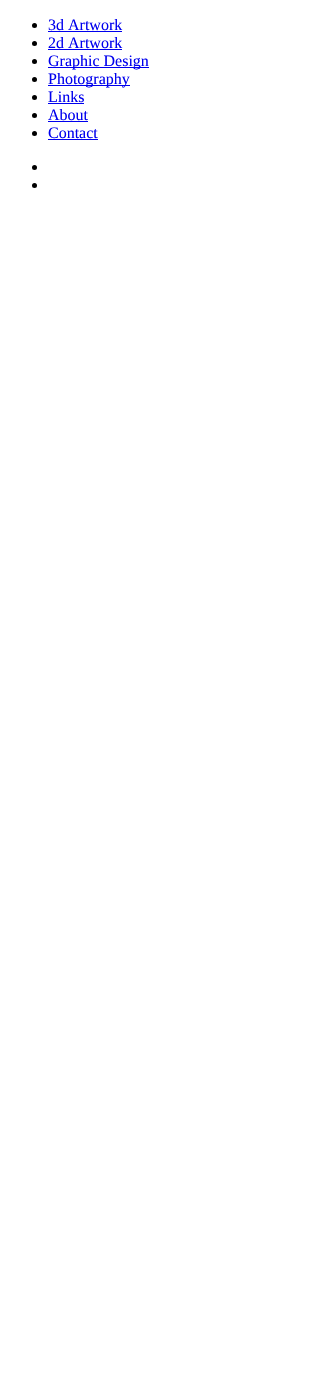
#include "include/core/SkBlurTypes.h"
#include "include/core/SkCanvas.h"
#include "include/core/SkData.h"
#include "include/core/SkFont.h"
#include "include/core/SkFontMgr.h"
#include "include/core/SkImage.h"
#include "include/core/SkMaskFilter.h"
#include "include/core/SkPaint.h"
#include "include/core/SkPathBuilder.h"
#include "include/core/SkTextBlob.h"
#include "include/effects/SkDashPathEffect.h"
#include "include/effects/SkGradientShader.h"
#include "include/utils/SkParsePath.h"

extern sk_sp<SkFontMgr> fontMgr;

void draw(SkCanvas* canvas) {
  SkPaint p;
  p.setAntiAlias(true);
  canvas->clear(SK_ColorWHITE);
  p.setColor(SK_ColorBLACK);
  canvas->drawCircle(34.5f, 25.5f, 2.5f, p);
  p.setColor(SkColorSetRGB(0, 0, 238));
  canvas->drawRect(SkRect::MakeLTRB(48, 31, 122, 32), p);
  p.setColor(SK_ColorBLACK);
  canvas->drawCircle(34.5f, 43.5f, 2.5f, p);
  p.setColor(SkColorSetRGB(0, 0, 238));
  canvas->drawRect(SkRect::MakeLTRB(48, 49, 122, 50), p);
  p.setColor(SK_ColorBLACK);
  canvas->drawCircle(34.5f, 61.5f, 2.5f, p);
  p.setColor(SkColorSetRGB(0, 0, 238));
  canvas->drawRect(SkRect::MakeLTRB(48, 67, 149, 68), p);
  p.setColor(SK_ColorBLACK);
  canvas->drawCircle(34.5f, 79.5f, 2.5f, p);
  p.setColor(SkColorSetRGB(0, 0, 238));
  canvas->drawRect(SkRect::MakeLTRB(48, 85, 130, 86), p);
  p.setColor(SK_ColorBLACK);
  canvas->drawCircle(34.5f, 97.5f, 2.5f, p);
  p.setColor(SkColorSetRGB(0, 0, 238));
  canvas->drawRect(SkRect::MakeLTRB(48, 103, 84, 104), p);
  p.setColor(SK_ColorBLACK);
  canvas->drawCircle(34.5f, 115.5f, 2.5f, p);
  p.setColor(SkColorSetRGB(0, 0, 238));
  canvas->drawRect(SkRect::MakeLTRB(48, 121, 88, 122), p);
  p.setColor(SK_ColorBLACK);
  canvas->drawCircle(34.5f, 133.5f, 2.5f, p);
  p.setColor(SkColorSetRGB(0, 0, 238));
  canvas->drawRect(SkRect::MakeLTRB(48, 139, 98, 140), p);
  p.setColor(SK_ColorBLACK);
  canvas->drawCircle(34.5f, 167.5f, 2.5f, p);
  canvas->drawCircle(34.5f, 185.5f, 2.5f, p);
  SkFont font1(fontMgr->matchFamilyStyle("Liberation Serif", SkFontStyle::Normal()), 16);
  font1.setSubpixel(true);
  p.setColor(SkColorSetRGB(0, 0, 238));
  canvas->drawString("3d Artwork", 48, 30, font1, p);
  canvas->drawString("2d Artwork", 48, 48, font1, p);
  canvas->drawString("Graphic Design", 48, 66, font1, p);
  canvas->drawString("Photography", 48, 84, font1, p);
  canvas->drawString("Links", 48, 102, font1, p);
  canvas->drawString("About", 48, 120, font1, p);
  canvas->drawString("Contact", 48, 138, font1, p);
}
